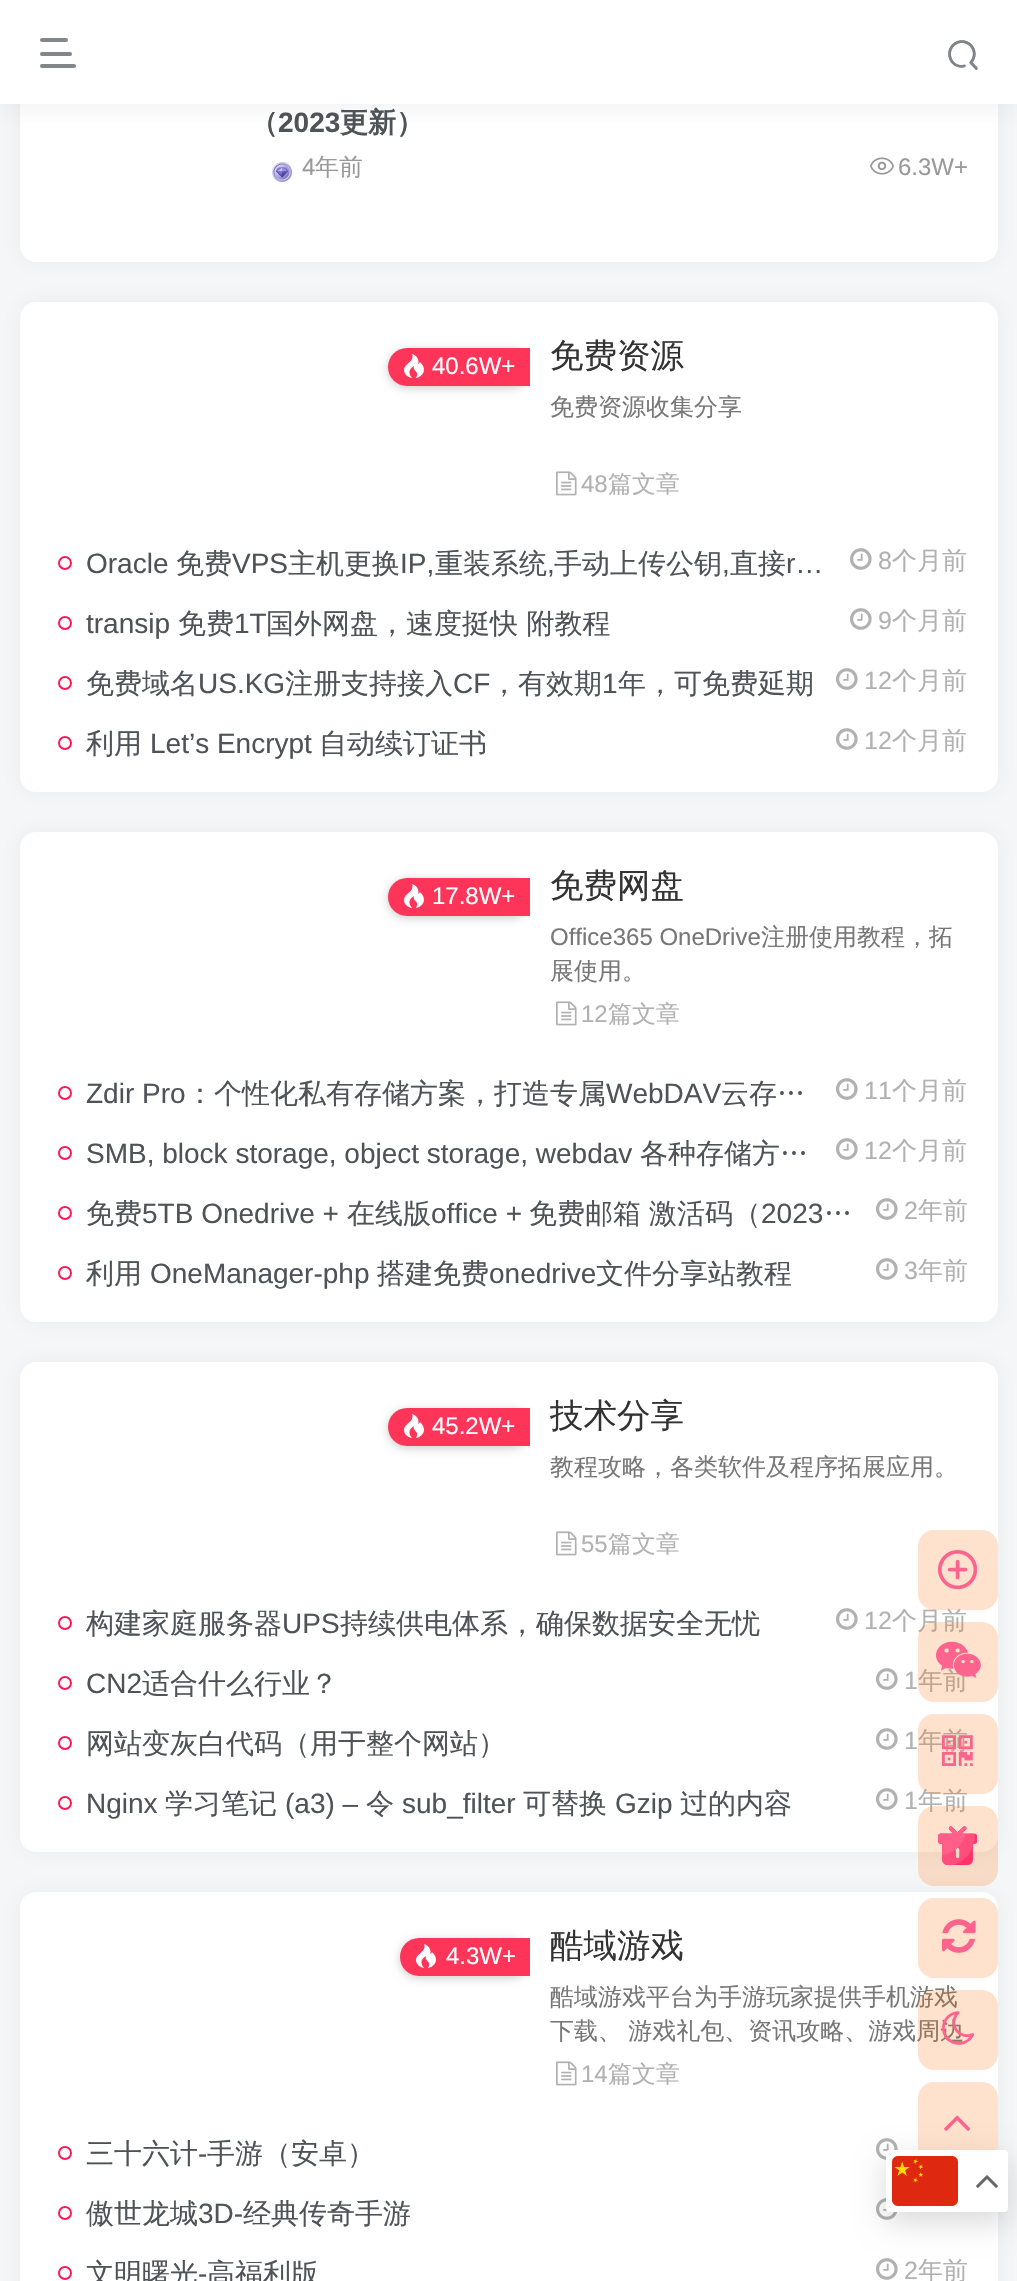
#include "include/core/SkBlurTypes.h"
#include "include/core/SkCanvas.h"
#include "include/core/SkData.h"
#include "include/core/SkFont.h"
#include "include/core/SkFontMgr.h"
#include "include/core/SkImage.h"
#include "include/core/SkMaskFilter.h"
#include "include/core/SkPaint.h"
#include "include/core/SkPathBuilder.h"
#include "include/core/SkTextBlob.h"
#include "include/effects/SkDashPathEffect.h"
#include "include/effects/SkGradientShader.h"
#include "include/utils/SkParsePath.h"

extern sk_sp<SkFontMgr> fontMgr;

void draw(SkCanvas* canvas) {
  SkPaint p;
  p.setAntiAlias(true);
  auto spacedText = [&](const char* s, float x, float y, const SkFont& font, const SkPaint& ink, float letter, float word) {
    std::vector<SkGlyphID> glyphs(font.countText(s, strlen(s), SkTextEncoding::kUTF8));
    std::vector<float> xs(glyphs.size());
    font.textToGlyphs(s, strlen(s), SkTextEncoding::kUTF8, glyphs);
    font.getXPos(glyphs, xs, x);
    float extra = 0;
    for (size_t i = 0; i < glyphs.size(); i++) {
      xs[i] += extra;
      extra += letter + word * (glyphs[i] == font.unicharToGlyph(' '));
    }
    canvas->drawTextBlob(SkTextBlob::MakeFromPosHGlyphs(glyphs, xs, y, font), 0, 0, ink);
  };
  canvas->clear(SkColorSetRGB(245, 246, 247));
  p.setColor(SkColorSetARGB(20, 116, 116, 116));
  p.setMaskFilter(SkMaskFilter::MakeBlur(kNormal_SkBlurStyle, 10));
  canvas->drawRoundRect(SkRect::MakeLTRB(20, -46, 998, 262), 16, 16, p);
  p.setMaskFilter(nullptr);
  p.setColor(SK_ColorWHITE);
  canvas->drawRoundRect(SkRect::MakeLTRB(20, -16, 998, 262), 16, 16, p);
  p.setColor(SkColorSetARGB(20, 116, 116, 116));
  p.setMaskFilter(SkMaskFilter::MakeBlur(kNormal_SkBlurStyle, 10));
  canvas->drawRect(SkRect::MakeLTRB(0, 8, 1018, 112), p);
  p.setMaskFilter(nullptr);
  p.setColor(SK_ColorWHITE);
  canvas->drawRect(SkRect::MakeLTRB(0, 0, 1017, 104), p);
  p.setColor(SkColorSetRGB(131, 135, 138));
  canvas->drawRoundRect(SkRect::MakeLTRB(40, 38, 68, 42), 2, 2, p);
  canvas->drawRoundRect(SkRect::MakeLTRB(40, 52, 72, 56), 2, 2, p);
  canvas->drawRoundRect(SkRect::MakeLTRB(40, 64, 76, 68), 2, 2, p);
  canvas->drawImageRect(SkImages::DeferredFromEncodedData(SkData::MakeFromFileName("images/1.png")), SkRect::MakeLTRB(948, 40, 978, 70), SkSamplingOptions());
  canvas->drawImageRect(SkImages::DeferredFromEncodedData(SkData::MakeFromFileName("images/2.png")), SkRect::MakeLTRB(272, 162, 292, 182), SkSamplingOptions());
  canvas->drawImageRect(SkImages::DeferredFromEncodedData(SkData::MakeFromFileName("images/3.png")), SkRect::MakeLTRB(870, 157, 894, 175), SkSamplingOptions());
  p.setColor(SkColorSetARGB(20, 116, 116, 116));
  p.setMaskFilter(SkMaskFilter::MakeBlur(kNormal_SkBlurStyle, 10));
  canvas->drawRoundRect(SkRect::MakeLTRB(20, 302, 998, 792), 16, 16, p);
  p.setMaskFilter(nullptr);
  p.setColor(SK_ColorWHITE);
  canvas->drawRoundRect(SkRect::MakeLTRB(20, 302, 998, 792), 16, 16, p);
  canvas->save();
  canvas->clipPath(SkPathBuilder().moveTo(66, 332).lineTo(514, 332).cubicTo(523, 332, 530, 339, 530, 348).lineTo(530, 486).cubicTo(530, 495, 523, 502, 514, 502).lineTo(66, 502).cubicTo(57, 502, 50, 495, 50, 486).lineTo(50, 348).cubicTo(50, 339, 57, 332, 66, 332).close().detach(), true);
  p.setColor(SkColorSetARGB(51, 0, 0, 0));
  p.setMaskFilter(SkMaskFilter::MakeBlur(kNormal_SkBlurStyle, 5));
  canvas->drawRoundRect(SkRect::MakeLTRB(388, 350, 530, 388), 19, 19, p);
  p.setMaskFilter(nullptr);
  canvas->restore();
  p.setColor(SkColorSetRGB(254, 52, 89));
  canvas->drawPath(SkPathBuilder().moveTo(407, 348).lineTo(530, 348).lineTo(530, 386).lineTo(407, 386).cubicTo(396.5f, 386, 388, 377.5f, 388, 367).cubicTo(388, 356.5f, 396.5f, 348, 407, 348).close().detach(), p);
  canvas->drawImageRect(SkImages::DeferredFromEncodedData(SkData::MakeFromFileName("images/4.png")), SkRect::MakeLTRB(404, 354, 424, 378), SkSamplingOptions());
  canvas->drawImageRect(SkImages::DeferredFromEncodedData(SkData::MakeFromFileName("images/5.png")), SkRect::MakeLTRB(556, 471, 577, 496), SkSamplingOptions());
  p.setStyle(SkPaint::kStroke_Style);
  p.setStrokeWidth(2);
  p.setColor(SkColorSetRGB(255, 24, 86));
  canvas->drawCircle(65, 563, 6, p);
  canvas->drawImageRect(SkImages::DeferredFromEncodedData(SkData::MakeFromFileName("images/6.png")), SkRect::MakeLTRB(850, 548, 872, 570), SkSamplingOptions());
  canvas->drawCircle(65, 623, 6, p);
  canvas->drawImageRect(SkImages::DeferredFromEncodedData(SkData::MakeFromFileName("images/6.png")), SkRect::MakeLTRB(850, 608, 872, 630), SkSamplingOptions());
  canvas->drawCircle(65, 683, 6, p);
  canvas->drawImageRect(SkImages::DeferredFromEncodedData(SkData::MakeFromFileName("images/6.png")), SkRect::MakeLTRB(836, 668, 858, 690), SkSamplingOptions());
  canvas->drawCircle(65, 743, 6, p);
  canvas->drawImageRect(SkImages::DeferredFromEncodedData(SkData::MakeFromFileName("images/6.png")), SkRect::MakeLTRB(836, 728, 858, 750), SkSamplingOptions());
  p.setStyle(SkPaint::kFill_Style);
  p.setColor(SkColorSetARGB(20, 116, 116, 116));
  p.setMaskFilter(SkMaskFilter::MakeBlur(kNormal_SkBlurStyle, 10));
  canvas->drawRoundRect(SkRect::MakeLTRB(20, 832, 998, 1322), 16, 16, p);
  p.setMaskFilter(nullptr);
  p.setColor(SK_ColorWHITE);
  canvas->drawRoundRect(SkRect::MakeLTRB(20, 832, 998, 1322), 16, 16, p);
  canvas->save();
  canvas->clipPath(SkPathBuilder().moveTo(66, 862).lineTo(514, 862).cubicTo(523, 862, 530, 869, 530, 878).lineTo(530, 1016).cubicTo(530, 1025, 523, 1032, 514, 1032).lineTo(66, 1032).cubicTo(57, 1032, 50, 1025, 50, 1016).lineTo(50, 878).cubicTo(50, 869, 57, 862, 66, 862).close().detach(), true);
  p.setColor(SkColorSetARGB(51, 0, 0, 0));
  p.setMaskFilter(SkMaskFilter::MakeBlur(kNormal_SkBlurStyle, 5));
  canvas->drawRoundRect(SkRect::MakeLTRB(388, 880, 530, 918), 19, 19, p);
  p.setMaskFilter(nullptr);
  canvas->restore();
  p.setColor(SkColorSetRGB(254, 52, 89));
  canvas->drawPath(SkPathBuilder().moveTo(407, 878).lineTo(530, 878).lineTo(530, 916).lineTo(407, 916).cubicTo(396.5f, 916, 388, 907.5f, 388, 897).cubicTo(388, 886.5f, 396.5f, 878, 407, 878).close().detach(), p);
  canvas->drawImageRect(SkImages::DeferredFromEncodedData(SkData::MakeFromFileName("images/4.png")), SkRect::MakeLTRB(404, 884, 424, 908), SkSamplingOptions());
  canvas->drawImageRect(SkImages::DeferredFromEncodedData(SkData::MakeFromFileName("images/5.png")), SkRect::MakeLTRB(556, 1001, 577, 1026), SkSamplingOptions());
  p.setStyle(SkPaint::kStroke_Style);
  p.setColor(SkColorSetRGB(255, 24, 86));
  canvas->drawCircle(65, 1093, 6, p);
  canvas->drawImageRect(SkImages::DeferredFromEncodedData(SkData::MakeFromFileName("images/6.png")), SkRect::MakeLTRB(836, 1078, 858, 1100), SkSamplingOptions());
  canvas->drawCircle(65, 1153, 6, p);
  canvas->drawImageRect(SkImages::DeferredFromEncodedData(SkData::MakeFromFileName("images/6.png")), SkRect::MakeLTRB(836, 1138, 858, 1160), SkSamplingOptions());
  canvas->drawCircle(65, 1213, 6, p);
  canvas->drawImageRect(SkImages::DeferredFromEncodedData(SkData::MakeFromFileName("images/6.png")), SkRect::MakeLTRB(876, 1198, 898, 1220), SkSamplingOptions());
  canvas->drawCircle(65, 1273, 6, p);
  canvas->drawImageRect(SkImages::DeferredFromEncodedData(SkData::MakeFromFileName("images/6.png")), SkRect::MakeLTRB(876, 1258, 898, 1280), SkSamplingOptions());
  p.setStyle(SkPaint::kFill_Style);
  p.setColor(SkColorSetARGB(20, 116, 116, 116));
  p.setMaskFilter(SkMaskFilter::MakeBlur(kNormal_SkBlurStyle, 10));
  canvas->drawRoundRect(SkRect::MakeLTRB(20, 1362, 998, 1852), 16, 16, p);
  p.setMaskFilter(nullptr);
  p.setColor(SK_ColorWHITE);
  canvas->drawRoundRect(SkRect::MakeLTRB(20, 1362, 998, 1852), 16, 16, p);
  canvas->save();
  canvas->clipPath(SkPathBuilder().moveTo(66, 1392).lineTo(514, 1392).cubicTo(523, 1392, 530, 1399, 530, 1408).lineTo(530, 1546).cubicTo(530, 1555, 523, 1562, 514, 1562).lineTo(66, 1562).cubicTo(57, 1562, 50, 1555, 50, 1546).lineTo(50, 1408).cubicTo(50, 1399, 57, 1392, 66, 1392).close().detach(), true);
  p.setColor(SkColorSetARGB(51, 0, 0, 0));
  p.setMaskFilter(SkMaskFilter::MakeBlur(kNormal_SkBlurStyle, 5));
  canvas->drawRoundRect(SkRect::MakeLTRB(388, 1410, 530, 1448), 19, 19, p);
  p.setMaskFilter(nullptr);
  canvas->restore();
  p.setColor(SkColorSetRGB(254, 52, 89));
  canvas->drawPath(SkPathBuilder().moveTo(407, 1408).lineTo(530, 1408).lineTo(530, 1446).lineTo(407, 1446).cubicTo(396.5f, 1446, 388, 1437.5f, 388, 1427).cubicTo(388, 1416.5f, 396.5f, 1408, 407, 1408).close().detach(), p);
  canvas->drawImageRect(SkImages::DeferredFromEncodedData(SkData::MakeFromFileName("images/4.png")), SkRect::MakeLTRB(404, 1414, 424, 1438), SkSamplingOptions());
  canvas->drawImageRect(SkImages::DeferredFromEncodedData(SkData::MakeFromFileName("images/5.png")), SkRect::MakeLTRB(556, 1531, 577, 1556), SkSamplingOptions());
  p.setStyle(SkPaint::kStroke_Style);
  p.setColor(SkColorSetRGB(255, 24, 86));
  canvas->drawCircle(65, 1623, 6, p);
  canvas->drawImageRect(SkImages::DeferredFromEncodedData(SkData::MakeFromFileName("images/6.png")), SkRect::MakeLTRB(836, 1608, 858, 1630), SkSamplingOptions());
  canvas->drawCircle(65, 1683, 6, p);
  canvas->drawImageRect(SkImages::DeferredFromEncodedData(SkData::MakeFromFileName("images/6.png")), SkRect::MakeLTRB(876, 1668, 898, 1690), SkSamplingOptions());
  canvas->drawCircle(65, 1743, 6, p);
  canvas->drawImageRect(SkImages::DeferredFromEncodedData(SkData::MakeFromFileName("images/6.png")), SkRect::MakeLTRB(876, 1728, 898, 1750), SkSamplingOptions());
  canvas->drawCircle(65, 1803, 6, p);
  canvas->drawImageRect(SkImages::DeferredFromEncodedData(SkData::MakeFromFileName("images/6.png")), SkRect::MakeLTRB(876, 1788, 898, 1810), SkSamplingOptions());
  p.setStyle(SkPaint::kFill_Style);
  p.setColor(SkColorSetARGB(20, 116, 116, 116));
  p.setMaskFilter(SkMaskFilter::MakeBlur(kNormal_SkBlurStyle, 10));
  canvas->drawRoundRect(SkRect::MakeLTRB(20, 1892, 998, 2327), 16, 16, p);
  p.setMaskFilter(nullptr);
  p.setColor(SK_ColorWHITE);
  canvas->drawRoundRect(SkRect::MakeLTRB(20, 1892, 998, 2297), 16, 16, p);
  canvas->save();
  canvas->clipPath(SkPathBuilder().moveTo(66, 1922).lineTo(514, 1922).cubicTo(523, 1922, 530, 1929, 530, 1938).lineTo(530, 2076).cubicTo(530, 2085, 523, 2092, 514, 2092).lineTo(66, 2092).cubicTo(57, 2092, 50, 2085, 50, 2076).lineTo(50, 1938).cubicTo(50, 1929, 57, 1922, 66, 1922).close().detach(), true);
  p.setColor(SkColorSetARGB(51, 0, 0, 0));
  p.setMaskFilter(SkMaskFilter::MakeBlur(kNormal_SkBlurStyle, 5));
  canvas->drawRoundRect(SkRect::MakeLTRB(400, 1940, 530, 1978), 19, 19, p);
  p.setMaskFilter(nullptr);
  canvas->restore();
  p.setColor(SkColorSetRGB(254, 52, 89));
  canvas->drawPath(SkPathBuilder().moveTo(419, 1938).lineTo(530, 1938).lineTo(530, 1976).lineTo(419, 1976).cubicTo(408.5f, 1976, 400, 1967.5f, 400, 1957).cubicTo(400, 1946.5f, 408.5f, 1938, 419, 1938).close().detach(), p);
  canvas->drawImageRect(SkImages::DeferredFromEncodedData(SkData::MakeFromFileName("images/4.png")), SkRect::MakeLTRB(416, 1944, 436, 1968), SkSamplingOptions());
  canvas->drawImageRect(SkImages::DeferredFromEncodedData(SkData::MakeFromFileName("images/5.png")), SkRect::MakeLTRB(556, 2061, 577, 2086), SkSamplingOptions());
  p.setStyle(SkPaint::kStroke_Style);
  p.setColor(SkColorSetRGB(255, 24, 86));
  canvas->drawCircle(65, 2153, 6, p);
  canvas->drawImageRect(SkImages::DeferredFromEncodedData(SkData::MakeFromFileName("images/6.png")), SkRect::MakeLTRB(876, 2138, 898, 2160), SkSamplingOptions());
  canvas->drawCircle(65, 2213, 6, p);
  canvas->drawImageRect(SkImages::DeferredFromEncodedData(SkData::MakeFromFileName("images/6.png")), SkRect::MakeLTRB(876, 2198, 898, 2220), SkSamplingOptions());
  canvas->drawCircle(65, 2273, 6, p);
  canvas->drawImageRect(SkImages::DeferredFromEncodedData(SkData::MakeFromFileName("images/6.png")), SkRect::MakeLTRB(876, 2258, 898, 2280), SkSamplingOptions());
  p.setStyle(SkPaint::kFill_Style);
  p.setColor(SkColorSetRGB(255, 226, 205));
  canvas->drawRoundRect(SkRect::MakeLTRB(918, 1898, 998, 1978), 16, 16, p);
  canvas->drawImageRect(SkImages::DeferredFromEncodedData(SkData::MakeFromFileName("images/11.png")), SkRect::MakeLTRB(942, 1919, 976, 1953), SkSamplingOptions());
  p.setColor(SkColorSetARGB(51, 255, 111, 6));
  canvas->drawRoundRect(SkRect::MakeLTRB(918, 2082, 998, 2162), 16, 16, p);
  canvas->drawImageRect(SkImages::DeferredFromEncodedData(SkData::MakeFromFileName("images/13.png")), SkRect::MakeLTRB(944, 2115, 971, 2131), SkSamplingOptions());
  p.setColor(SkColorSetARGB(38, 0, 0, 0));
  p.setMaskFilter(SkMaskFilter::MakeBlur(kNormal_SkBlurStyle, 15));
  canvas->drawRoundRect(SkRect::MakeLTRB(886, 2160, 1008, 2222), 4, 4, p);
  p.setMaskFilter(nullptr);
  p.setColor(SK_ColorWHITE);
  canvas->drawRoundRect(SkRect::MakeLTRB(886, 2150, 1008, 2212), 4, 4, p);
  canvas->drawImageRect(SkImages::DeferredFromEncodedData(SkData::MakeFromFileName("images/14.png")), SkRect::MakeLTRB(892, 2156, 958, 2206), SkSamplingOptions());
  canvas->drawImageRect(SkImages::DeferredFromEncodedData(SkData::MakeFromFileName("images/15.png")), SkRect::MakeLTRB(976, 2175, 998, 2188), SkSamplingOptions());
  SkFont font1(fontMgr->matchFamilyStyle("WenQuanYi Zen Hei", SkFontStyle::Bold()), 28);
  font1.setSubpixel(true);
  p.setColor(SkColorSetRGB(78, 83, 88));
  canvas->drawString("（", 250, 132, font1, p);
  SkFont font2(fontMgr->matchFamilyStyle("Liberation Sans", SkFontStyle::Bold()), 28);
  font2.setSubpixel(true);
  canvas->drawString("2023", 278, 132, font2, p);
  canvas->drawString("更新）", 340, 132, font1, p);
  SkFont font3(fontMgr->matchFamilyStyle("Liberation Sans", SkFontStyle::Normal()), 24);
  font3.setSubpixel(true);
  p.setColor(SkColorSetRGB(153, 153, 153));
  canvas->drawString("4", 302, 175, font3, p);
  SkFont font4(fontMgr->matchFamilyStyle("WenQuanYi Zen Hei", SkFontStyle(500, SkFontStyle::kNormal_Width, SkFontStyle::kUpright_Slant)), 24);
  font4.setSubpixel(true);
  canvas->drawString("年前", 315, 175, font4, p);
  canvas->drawString("6.3W+", 898, 175, font3, p);
  p.setColor(SK_ColorWHITE);
  canvas->drawString("40.6W+", 432, 374, font3, p);
  SkFont font5(fontMgr->matchFamilyStyle("WenQuanYi Zen Hei", SkFontStyle(500, SkFontStyle::kNormal_Width, SkFontStyle::kUpright_Slant)), 33.5f);
  font5.setSubpixel(true);
  p.setColor(SkColorSetRGB(51, 51, 51));
  canvas->drawString("免费资源", 550, 367, font5, p);
  p.setColor(SkColorSetRGB(119, 119, 119));
  canvas->drawString("免费资源收集分享", 550, 415, font4, p);
  p.setColor(SkColorSetRGB(177, 177, 177));
  canvas->drawString("48", 581, 492, font3, p);
  canvas->drawString("篇文章", 608, 492, font4, p);
  SkFont font6(fontMgr->matchFamilyStyle("Liberation Sans", SkFontStyle::Normal()), 28);
  font6.setSubpixel(true);
  p.setColor(SkColorSetRGB(78, 83, 88));
  canvas->drawString("Oracle", 86, 573, font6, p);
  SkFont font7(fontMgr->matchFamilyStyle("WenQuanYi Zen Hei", SkFontStyle(500, SkFontStyle::kNormal_Width, SkFontStyle::kUpright_Slant)), 28);
  font7.setSubpixel(true);
  canvas->drawString("免费", 176, 573, font7, p);
  canvas->drawString("VPS", 232, 573, font6, p);
  canvas->drawString("主机更换", 288, 573, font7, p);
  canvas->drawString("IP,", 400, 573, font6, p);
  canvas->drawString("重装系统", 435, 573, font7, p);
  canvas->drawString(",", 547, 573, font6, p);
  canvas->drawString("手动上传公钥", 554, 573, font7, p);
  canvas->drawString(",", 722, 573, font6, p);
  canvas->drawString("直接", 730, 573, font7, p);
  canvas->drawString("r…", 786, 573, font6, p);
  SkFont font8(fontMgr->matchFamilyStyle("Liberation Sans", SkFontStyle::Normal()), 25);
  font8.setSubpixel(true);
  p.setColor(SkColorSetRGB(177, 177, 177));
  canvas->drawString("8", 878, 569, font8, p);
  SkFont font9(fontMgr->matchFamilyStyle("WenQuanYi Zen Hei", SkFontStyle(500, SkFontStyle::kNormal_Width, SkFontStyle::kUpright_Slant)), 25);
  font9.setSubpixel(true);
  canvas->drawString("个月前", 892, 569, font9, p);
  p.setColor(SkColorSetRGB(78, 83, 88));
  canvas->drawString("transip", 86, 633, font6, p);
  canvas->drawString("免费", 178, 633, font7, p);
  canvas->drawString("1T", 234, 633, font6, p);
  canvas->drawString("国外网盘，速度挺快 附教程", 266, 633, font7, p);
  p.setColor(SkColorSetRGB(177, 177, 177));
  canvas->drawString("9", 878, 629, font8, p);
  canvas->drawString("个月前", 892, 629, font9, p);
  p.setColor(SkColorSetRGB(78, 83, 88));
  canvas->drawString("免费域名", 86, 693, font7, p);
  canvas->drawString("US.KG", 198, 693, font6, p);
  canvas->drawString("注册支持接入", 285, 693, font7, p);
  canvas->drawString("CF", 453, 693, font6, p);
  canvas->drawString("，有效期", 490, 693, font7, p);
  canvas->drawString("1", 602, 693, font6, p);
  canvas->drawString("年，可免费延期", 618, 693, font7, p);
  p.setColor(SkColorSetRGB(177, 177, 177));
  canvas->drawString("12", 864, 689, font8, p);
  canvas->drawString("个月前", 892, 689, font9, p);
  p.setColor(SkColorSetRGB(78, 83, 88));
  canvas->drawString("利用", 86, 753, font7, p);
  canvas->drawString("Let’s Encrypt", 150, 753, font6, p);
  canvas->drawString("自动续订证书", 319, 753, font7, p);
  p.setColor(SkColorSetRGB(177, 177, 177));
  canvas->drawString("12", 864, 749, font8, p);
  canvas->drawString("个月前", 892, 749, font9, p);
  p.setColor(SK_ColorWHITE);
  canvas->drawString("17.8W+", 432, 904, font3, p);
  p.setColor(SkColorSetRGB(51, 51, 51));
  canvas->drawString("免费网盘", 550, 897, font5, p);
  p.setColor(SkColorSetRGB(119, 119, 119));
  canvas->drawString("Office365 OneDrive", 550, 945, font3, p);
  canvas->drawString("注册使用教程，拓", 761, 945, font4, p);
  canvas->drawString("展使用。", 550, 979, font4, p);
  p.setColor(SkColorSetRGB(177, 177, 177));
  canvas->drawString("12", 581, 1022, font3, p);
  canvas->drawString("篇文章", 608, 1022, font4, p);
  p.setColor(SkColorSetRGB(78, 83, 88));
  canvas->drawString("Zdir Pro", 86, 1103, font6, p);
  canvas->drawString("：个性化私有存储方案，打造专属", 186, 1103, font7, p);
  canvas->drawString("WebDAV", 606, 1103, font6, p);
  canvas->drawString("云存…", 721, 1103, font7, p);
  p.setColor(SkColorSetRGB(177, 177, 177));
  canvas->drawString("11", 864, 1099, font8, p);
  canvas->drawString("个月前", 892, 1099, font9, p);
  p.setColor(SkColorSetRGB(78, 83, 88));
  canvas->drawString("SMB, block storage, object storage, webdav", 86, 1163, font6, p);
  canvas->drawString("各种存储方…", 640, 1163, font7, p);
  p.setColor(SkColorSetRGB(177, 177, 177));
  canvas->drawString("12", 864, 1159, font8, p);
  canvas->drawString("个月前", 892, 1159, font9, p);
  p.setColor(SkColorSetRGB(78, 83, 88));
  canvas->drawString("免费", 86, 1223, font7, p);
  canvas->drawString("5TB Onedrive +", 142, 1223, font6, p);
  canvas->drawString("在线版", 347, 1223, font7, p);
  canvas->drawString("office +", 431, 1223, font6, p);
  canvas->drawString("免费邮箱", 529, 1223, font7, p);
  canvas->drawString("激活码（", 649, 1223, font7, p);
  canvas->drawString("2023", 761, 1223, font6, p);
  canvas->drawString("…", 824, 1223, font7, p);
  p.setColor(SkColorSetRGB(177, 177, 177));
  canvas->drawString("2", 904, 1219, font8, p);
  canvas->drawString("年前", 918, 1219, font9, p);
  p.setColor(SkColorSetRGB(78, 83, 88));
  canvas->drawString("利用", 86, 1283, font7, p);
  canvas->drawString("OneManager-php", 150, 1283, font6, p);
  canvas->drawString("搭建免费", 377, 1283, font7, p);
  canvas->drawString("onedrive", 489, 1283, font6, p);
  canvas->drawString("文件分享站教程", 596, 1283, font7, p);
  p.setColor(SkColorSetRGB(177, 177, 177));
  canvas->drawString("3", 904, 1279, font8, p);
  canvas->drawString("年前", 918, 1279, font9, p);
  p.setColor(SK_ColorWHITE);
  canvas->drawString("45.2W+", 432, 1434, font3, p);
  p.setColor(SkColorSetRGB(51, 51, 51));
  canvas->drawString("技术分享", 550, 1427, font5, p);
  p.setColor(SkColorSetRGB(119, 119, 119));
  canvas->drawString("教程攻略，各类软件及程序拓展应用。", 550, 1475, font4, p);
  p.setColor(SkColorSetRGB(177, 177, 177));
  canvas->drawString("55", 581, 1552, font3, p);
  canvas->drawString("篇文章", 608, 1552, font4, p);
  p.setColor(SkColorSetRGB(78, 83, 88));
  canvas->drawString("构建家庭服务器", 86, 1633, font7, p);
  canvas->drawString("UPS", 282, 1633, font6, p);
  canvas->drawString("持续供电体系，确保数据安全无忧", 340, 1633, font7, p);
  p.setColor(SkColorSetRGB(177, 177, 177));
  canvas->drawString("12", 864, 1629, font8, p);
  canvas->drawString("个月前", 892, 1629, font9, p);
  p.setColor(SkColorSetRGB(78, 83, 88));
  canvas->drawString("CN2", 86, 1693, font6, p);
  canvas->drawString("适合什么行业？", 142, 1693, font7, p);
  p.setColor(SkColorSetRGB(177, 177, 177));
  canvas->drawString("1", 904, 1689, font8, p);
  canvas->drawString("年前", 918, 1689, font9, p);
  p.setColor(SkColorSetRGB(78, 83, 88));
  canvas->drawString("网站变灰白代码（用于整个网站）", 86, 1753, font7, p);
  p.setColor(SkColorSetRGB(177, 177, 177));
  canvas->drawString("1", 904, 1749, font8, p);
  canvas->drawString("年前", 918, 1749, font9, p);
  p.setColor(SkColorSetRGB(78, 83, 88));
  canvas->drawString("Nginx", 86, 1813, font6, p);
  canvas->drawString("学习笔记", 165, 1813, font7, p);
  canvas->drawString("(a3) –", 285, 1813, font6, p);
  canvas->drawString("令", 366, 1813, font7, p);
  canvas->drawString("sub_filter", 402, 1813, font6, p);
  canvas->drawString("可替换", 523, 1813, font7, p);
  canvas->drawString("Gzip", 615, 1813, font6, p);
  canvas->drawString("过的内容", 680, 1813, font7, p);
  p.setColor(SkColorSetRGB(177, 177, 177));
  canvas->drawString("1", 904, 1809, font8, p);
  canvas->drawString("年前", 918, 1809, font9, p);
  p.setColor(SK_ColorWHITE);
  canvas->drawString("4.3W+", 446, 1964, font3, p);
  p.setColor(SkColorSetRGB(51, 51, 51));
  canvas->drawString("酷域游戏", 550, 1957, font5, p);
  p.setColor(SkColorSetRGB(119, 119, 119));
  canvas->drawString("酷域游戏平台为手游玩家提供手机游戏", 550, 2005, font4, p);
  spacedText("下载、 游戏礼包、资讯攻略、游戏周边", 550, 2039, font4, p, 0, -1);
  p.setColor(SkColorSetRGB(177, 177, 177));
  canvas->drawString("14", 581, 2082, font3, p);
  canvas->drawString("篇文章", 608, 2082, font4, p);
  p.setColor(SkColorSetRGB(78, 83, 88));
  canvas->drawString("三十六计", 86, 2163, font7, p);
  canvas->drawString("-", 198, 2163, font6, p);
  canvas->drawString("手游（安卓）", 207, 2163, font7, p);
  canvas->drawString("傲世龙城", 86, 2223, font7, p);
  canvas->drawString("3D-", 198, 2223, font6, p);
  canvas->drawString("经典传奇手游", 243, 2223, font7, p);
  canvas->drawString("文明曙光", 86, 2283, font7, p);
  canvas->drawString("-", 198, 2283, font6, p);
  canvas->drawString("高福利版", 207, 2283, font7, p);
  p.setColor(SkColorSetRGB(177, 177, 177));
  canvas->drawString("2", 904, 2279, font8, p);
  canvas->drawString("年前", 918, 2279, font9, p);
  p.setColor(SkColorSetARGB(51, 255, 111, 6));
  canvas->drawRoundRect(SkRect::MakeLTRB(918, 1530, 998, 1610), 16, 16, p);
  canvas->drawImageRect(SkImages::DeferredFromEncodedData(SkData::MakeFromFileName("images/7.png")), SkRect::MakeLTRB(938, 1550, 977, 1589), SkSamplingOptions());
  canvas->drawRoundRect(SkRect::MakeLTRB(918, 1622, 998, 1702), 16, 16, p);
  canvas->drawImageRect(SkImages::DeferredFromEncodedData(SkData::MakeFromFileName("images/8.png")), SkRect::MakeLTRB(936, 1641, 981, 1679), SkSamplingOptions());
  canvas->drawRoundRect(SkRect::MakeLTRB(918, 1714, 998, 1794), 16, 16, p);
  canvas->drawImageRect(SkImages::DeferredFromEncodedData(SkData::MakeFromFileName("images/9.png")), SkRect::MakeLTRB(942, 1735, 973, 1766), SkSamplingOptions());
  canvas->drawRoundRect(SkRect::MakeLTRB(918, 1806, 998, 1886), 16, 16, p);
  canvas->drawImageRect(SkImages::DeferredFromEncodedData(SkData::MakeFromFileName("images/10.png")), SkRect::MakeLTRB(938, 1826, 977, 1865), SkSamplingOptions());
  canvas->drawRoundRect(SkRect::MakeLTRB(918, 1990, 998, 2070), 16, 16, p);
  canvas->drawImageRect(SkImages::DeferredFromEncodedData(SkData::MakeFromFileName("images/12.png")), SkRect::MakeLTRB(942, 2011, 975, 2045), SkSamplingOptions());
}
